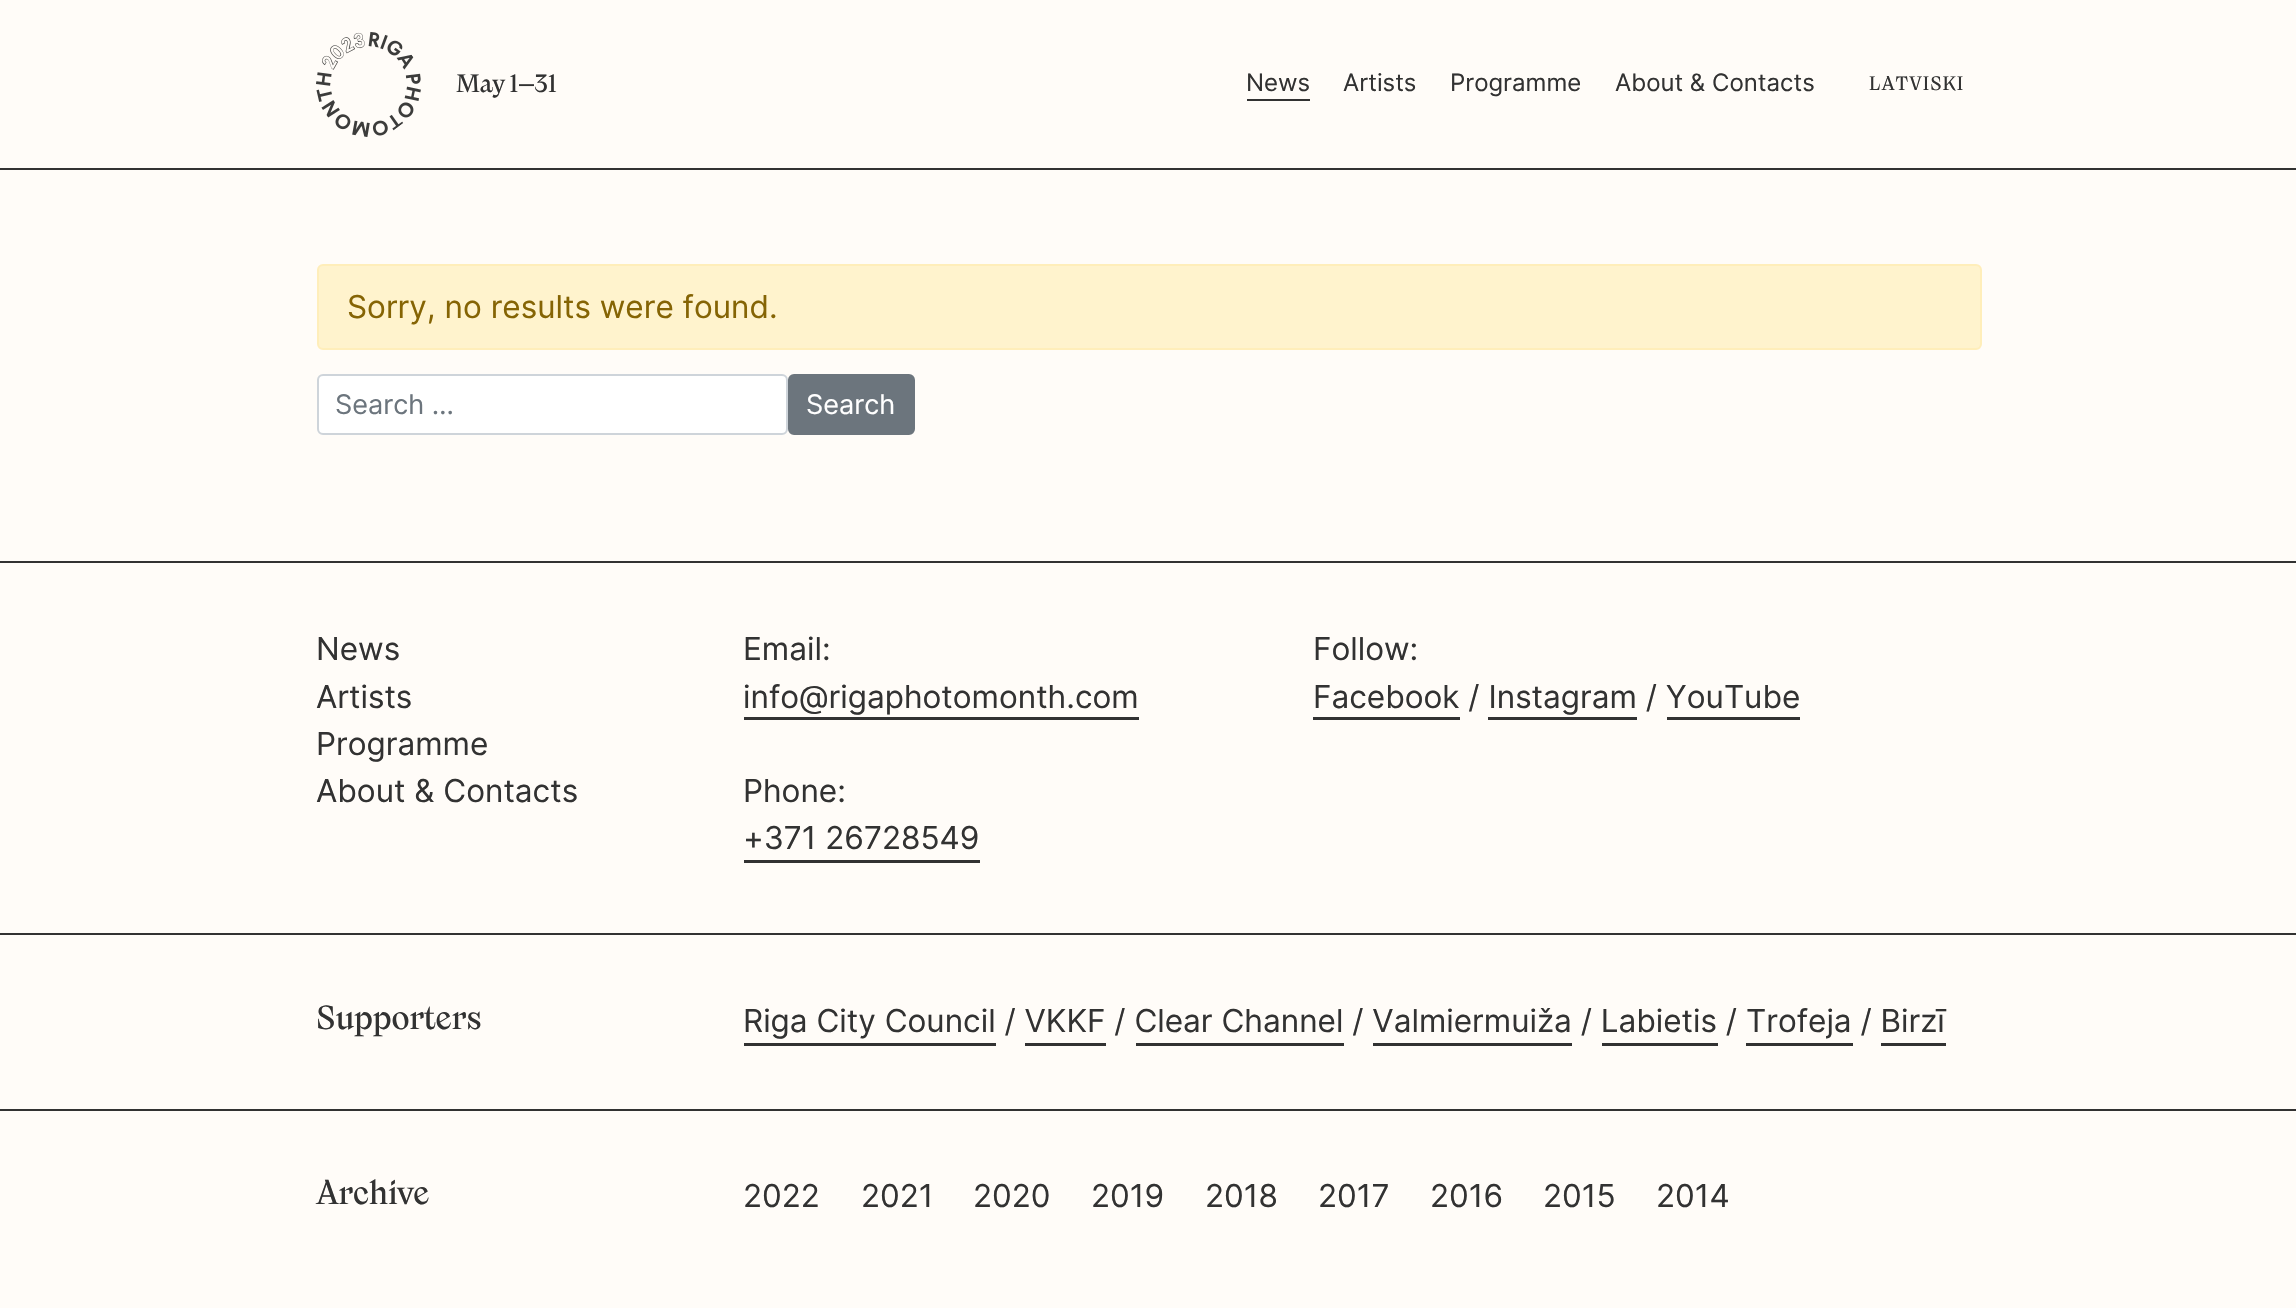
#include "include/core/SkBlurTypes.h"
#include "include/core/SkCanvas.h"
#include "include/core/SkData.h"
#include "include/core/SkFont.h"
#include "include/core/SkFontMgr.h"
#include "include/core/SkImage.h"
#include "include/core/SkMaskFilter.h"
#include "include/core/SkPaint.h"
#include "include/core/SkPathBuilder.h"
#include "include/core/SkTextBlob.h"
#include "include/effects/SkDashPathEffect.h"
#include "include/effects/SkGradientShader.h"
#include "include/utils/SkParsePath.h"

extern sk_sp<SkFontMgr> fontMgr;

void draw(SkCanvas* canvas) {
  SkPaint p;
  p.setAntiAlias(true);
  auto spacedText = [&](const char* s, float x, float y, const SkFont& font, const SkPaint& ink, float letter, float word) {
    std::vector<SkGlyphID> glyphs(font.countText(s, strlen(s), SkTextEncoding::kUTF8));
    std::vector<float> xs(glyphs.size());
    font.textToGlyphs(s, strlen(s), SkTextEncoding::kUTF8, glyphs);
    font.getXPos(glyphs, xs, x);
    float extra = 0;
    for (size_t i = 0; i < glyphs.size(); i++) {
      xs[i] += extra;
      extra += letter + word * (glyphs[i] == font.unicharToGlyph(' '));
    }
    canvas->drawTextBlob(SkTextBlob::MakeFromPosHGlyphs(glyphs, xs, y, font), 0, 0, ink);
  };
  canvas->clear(SkColorSetRGB(255, 252, 248));
  p.setColor(SkColorSetRGB(50, 50, 50));
  canvas->drawRect(SkRect::MakeLTRB(0, 168, 2296, 170), p);
  canvas->drawImageRect(SkImages::DeferredFromEncodedData(SkData::MakeFromFileName("images/1.png")), SkRect::MakeLTRB(316, 31, 421, 137), SkSamplingOptions());
  canvas->drawRect(SkRect::MakeLTRB(1247, 99, 1310, 101), p);
  p.setColor(SkColorSetRGB(255, 243, 205));
  canvas->drawRoundRect(SkRect::MakeLTRB(318, 265, 1981, 349), 5, 5, p);
  p.setStyle(SkPaint::kStroke_Style);
  p.setStrokeWidth(2);
  p.setColor(SkColorSetRGB(255, 238, 186));
  canvas->drawRoundRect(SkRect::MakeLTRB(318, 265, 1981, 349), 5, 5, p);
  p.setStyle(SkPaint::kFill_Style);
  p.setColor(SK_ColorWHITE);
  canvas->drawRoundRect(SkRect::MakeLTRB(318, 375, 787, 434), 5, 5, p);
  p.setStyle(SkPaint::kStroke_Style);
  p.setColor(SkColorSetRGB(206, 212, 218));
  canvas->drawRoundRect(SkRect::MakeLTRB(318, 375, 787, 434), 5, 5, p);
  p.setStyle(SkPaint::kFill_Style);
  p.setColor(SkColorSetRGB(108, 117, 125));
  canvas->drawRoundRect(SkRect::MakeLTRB(789, 375, 914, 434), 5, 5, p);
  p.setStyle(SkPaint::kStroke_Style);
  canvas->drawRoundRect(SkRect::MakeLTRB(789, 375, 914, 434), 5, 5, p);
  p.setStyle(SkPaint::kFill_Style);
  p.setColor(SkColorSetRGB(50, 50, 50));
  canvas->drawRect(SkRect::MakeLTRB(0, 561, 2296, 563), p);
  canvas->drawRect(SkRect::MakeLTRB(744, 717, 1139, 720), p);
  canvas->drawRect(SkRect::MakeLTRB(744, 860, 980, 863), p);
  canvas->drawRect(SkRect::MakeLTRB(1313, 717, 1460, 720), p);
  canvas->drawRect(SkRect::MakeLTRB(1488, 717, 1637, 720), p);
  canvas->drawRect(SkRect::MakeLTRB(1667, 717, 1800, 720), p);
  canvas->drawRect(SkRect::MakeLTRB(0, 933, 2296, 935), p);
  canvas->drawRect(SkRect::MakeLTRB(744, 1043, 996, 1046), p);
  canvas->drawRect(SkRect::MakeLTRB(1025, 1043, 1106, 1046), p);
  canvas->drawRect(SkRect::MakeLTRB(1136, 1043, 1344, 1046), p);
  canvas->drawRect(SkRect::MakeLTRB(1373, 1043, 1572, 1046), p);
  canvas->drawRect(SkRect::MakeLTRB(1602, 1043, 1718, 1046), p);
  canvas->drawRect(SkRect::MakeLTRB(1746, 1043, 1853, 1046), p);
  canvas->drawRect(SkRect::MakeLTRB(1881, 1043, 1946, 1046), p);
  canvas->drawRect(SkRect::MakeLTRB(0, 1109, 2296, 1111), p);
  SkFont font1(fontMgr->matchFamilyStyle("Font", SkFontStyle::Normal()), 27);
  font1.setSubpixel(true);
  canvas->drawString("May 1", 456, 92, font1, p);
  SkFont font2(fontMgr->matchFamilyStyle("Liberation Sans", SkFontStyle::Normal()), 27);
  font2.setSubpixel(true);
  canvas->drawString("–", 519, 92, font2, p);
  canvas->drawString("31", 534, 92, font1, p);
  SkFont font3(fontMgr->matchFamilyStyle("Inter", SkFontStyle::Normal()), 24);
  font3.setSubpixel(true);
  canvas->drawString("News", 1246, 91, font3, p);
  canvas->drawString("Artists", 1343, 91, font3, p);
  canvas->drawString("Programme", 1450, 91, font3, p);
  canvas->drawString("About & Contacts", 1615, 91, font3, p);
  SkFont font4(fontMgr->matchFamilyStyle("Font", SkFontStyle::Normal()), 21);
  font4.setSubpixel(true);
  spacedText("LATVISKI", 1869, 90, font4, p, 1, 0);
  SkFont font5(fontMgr->matchFamilyStyle("Inter", SkFontStyle::Normal()), 31.5f);
  font5.setSubpixel(true);
  p.setColor(SkColorSetRGB(133, 100, 4));
  canvas->drawString("Sorry, no results were found.", 347, 318, font5, p);
  SkFont font6(fontMgr->matchFamilyStyle("Inter", SkFontStyle::Normal()), 27);
  font6.setSubpixel(true);
  p.setColor(SkColorSetRGB(108, 117, 125));
  canvas->drawString("Search …", 335, 414, font6, p);
  p.setColor(SK_ColorWHITE);
  canvas->drawString("Search", 806, 414, font6, p);
  p.setColor(SkColorSetRGB(50, 50, 50));
  canvas->drawString("News", 316, 660, font5, p);
  canvas->drawString("Artists", 316, 708, font5, p);
  canvas->drawString("Programme", 316, 755, font5, p);
  canvas->drawString("About & Contacts", 316, 802, font5, p);
  canvas->drawString("Email:", 743, 660, font5, p);
  canvas->drawString("info@rigaphotomonth.com", 743, 708, font5, p);
  canvas->drawString("Phone:", 743, 802, font5, p);
  canvas->drawString("+371 26728549", 743, 849, font5, p);
  canvas->drawString("Follow:", 1313, 660, font5, p);
  canvas->drawString("Facebook / Instagram / YouTube", 1313, 708, font5, p);
  SkFont font7(fontMgr->matchFamilyStyle("Font", SkFontStyle::Normal()), 36);
  font7.setSubpixel(true);
  canvas->drawString("Supporters", 316, 1029, font7, p);
  canvas->drawString("Riga City Council / VKKF / Clear Channel / Valmiermuiža / Labietis / Trofeja / Birzī", 743, 1032, font5, p);
  canvas->drawString("Archive", 316, 1204, font7, p);
  canvas->drawString("2022", 743, 1207, font5, p);
  canvas->drawString("2021", 861, 1207, font5, p);
  canvas->drawString("2020", 973, 1207, font5, p);
  canvas->drawString("2019", 1091, 1207, font5, p);
  canvas->drawString("2018", 1205, 1207, font5, p);
  canvas->drawString("2017", 1318, 1207, font5, p);
  canvas->drawString("2016", 1430, 1207, font5, p);
  canvas->drawString("2015", 1543, 1207, font5, p);
  canvas->drawString("2014", 1656, 1207, font5, p);
}
